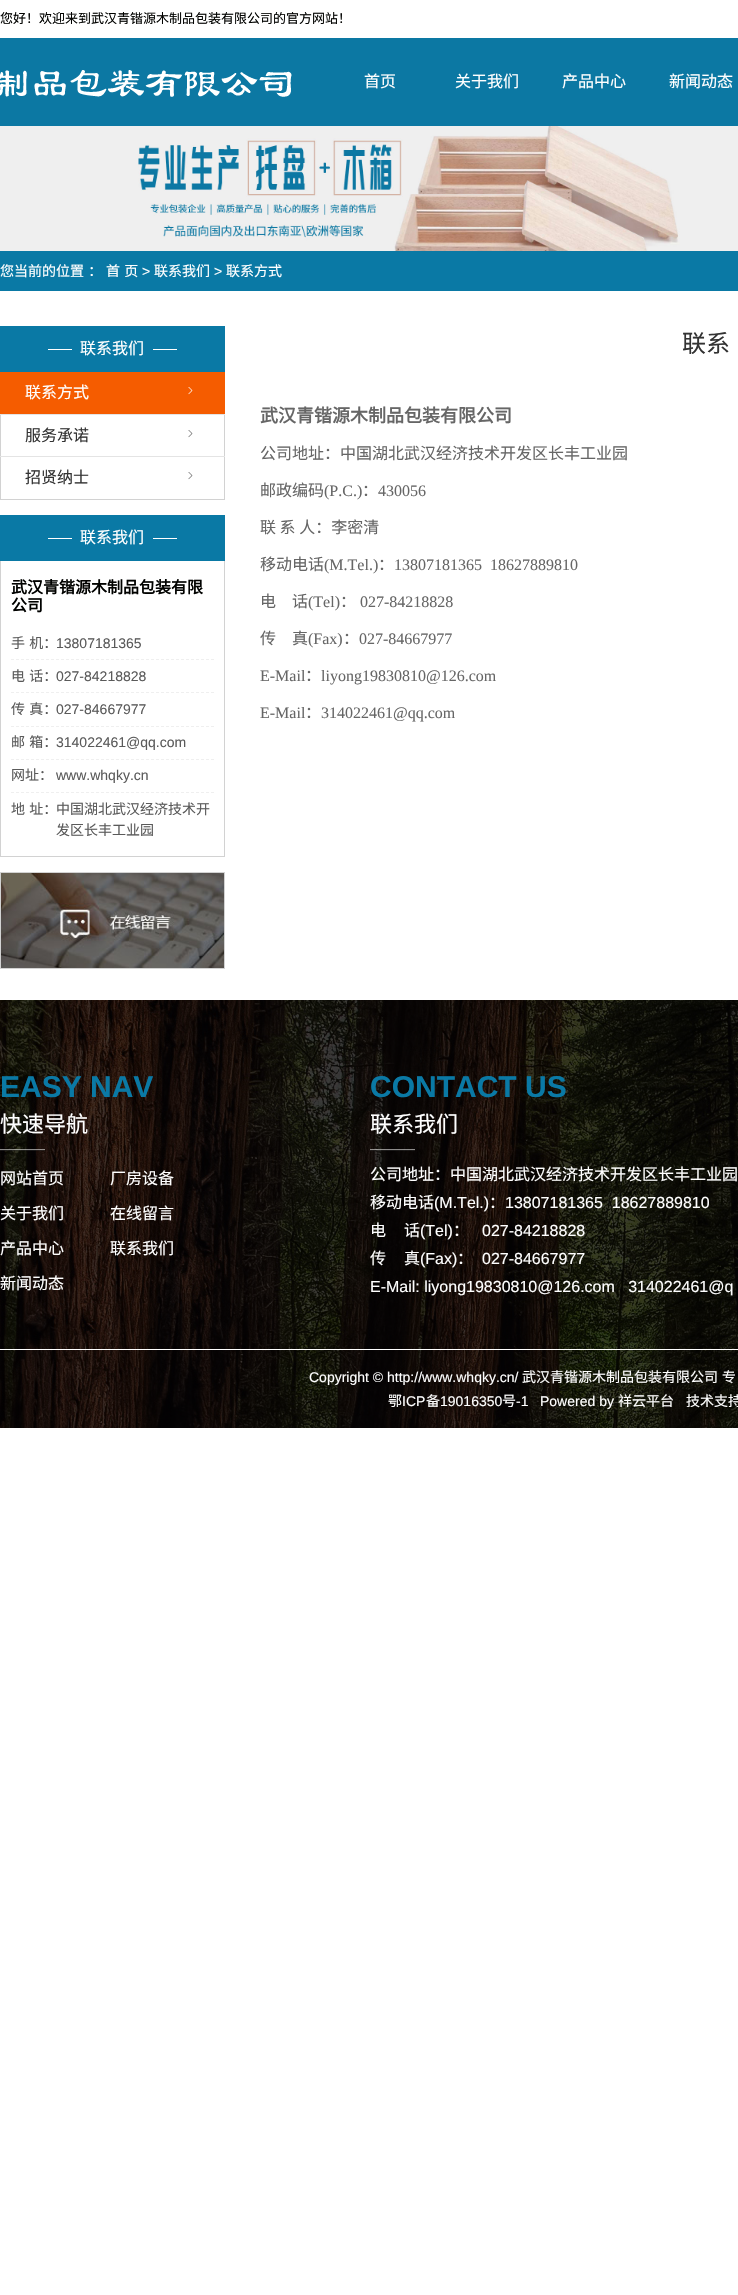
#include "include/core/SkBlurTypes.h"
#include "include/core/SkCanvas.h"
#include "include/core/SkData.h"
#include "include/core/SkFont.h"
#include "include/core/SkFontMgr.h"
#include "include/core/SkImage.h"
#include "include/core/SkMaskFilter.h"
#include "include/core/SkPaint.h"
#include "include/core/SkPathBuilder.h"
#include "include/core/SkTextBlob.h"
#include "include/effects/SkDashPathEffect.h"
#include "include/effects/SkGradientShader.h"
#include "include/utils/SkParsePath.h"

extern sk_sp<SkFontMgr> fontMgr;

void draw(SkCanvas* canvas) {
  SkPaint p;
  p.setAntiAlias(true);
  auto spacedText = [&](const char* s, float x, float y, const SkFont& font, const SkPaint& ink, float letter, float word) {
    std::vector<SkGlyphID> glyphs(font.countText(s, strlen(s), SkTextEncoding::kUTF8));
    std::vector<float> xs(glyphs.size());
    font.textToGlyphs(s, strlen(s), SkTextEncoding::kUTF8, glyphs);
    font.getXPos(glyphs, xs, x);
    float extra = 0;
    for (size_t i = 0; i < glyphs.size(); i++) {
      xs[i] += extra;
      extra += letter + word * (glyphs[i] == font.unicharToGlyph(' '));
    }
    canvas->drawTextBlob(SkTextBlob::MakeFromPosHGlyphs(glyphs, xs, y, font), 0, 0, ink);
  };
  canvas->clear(SK_ColorWHITE);
  p.setColor(SkColorSetRGB(12, 120, 163));
  canvas->drawRect(SkRect::MakeLTRB(0, 38, 738, 126), p);
  canvas->drawImageRect(SkImages::DeferredFromEncodedData(SkData::MakeFromFileName("images/1.png")), SkRect::MakeLTRB(0, 70, 292, 97), SkSamplingOptions());
  canvas->drawImageRect(SkImages::DeferredFromEncodedData(SkData::MakeFromFileName("images/2.png")), SkRect::MakeLTRB(0, 126, 738, 251), SkSamplingOptions());
  p.setColor(SkColorSetRGB(10, 121, 165));
  canvas->drawRect(SkRect::MakeLTRB(0, 251, 738, 291), p);
  canvas->drawRect(SkRect::MakeLTRB(0, 326, 225, 372), p);
  p.setColor(SK_ColorWHITE);
  canvas->drawRect(SkRect::MakeLTRB(48, 349, 72, 350), p);
  canvas->drawRect(SkRect::MakeLTRB(153, 349, 177, 350), p);
  p.setColor(SkColorSetRGB(210, 210, 210));
  canvas->drawRect(SkRect::MakeLTRB(224, 415, 225, 500), p);
  canvas->drawRect(SkRect::MakeLTRB(0, 499, 225, 500), p);
  canvas->drawRect(SkRect::MakeLTRB(0, 415, 1, 500), p);
  p.setColor(SkColorSetRGB(245, 92, 0));
  canvas->drawRect(SkRect::MakeLTRB(0, 372, 225, 414), p);
  canvas->drawImageRect(SkImages::DeferredFromEncodedData(SkData::MakeFromFileName("images/3.png")), SkRect::MakeLTRB(188, 387, 193, 395), SkSamplingOptions());
  p.setColor(SkColorSetRGB(228, 228, 228));
  canvas->drawRect(SkRect::MakeLTRB(0, 414, 225, 415), p);
  canvas->drawImageRect(SkImages::DeferredFromEncodedData(SkData::MakeFromFileName("images/4.png")), SkRect::MakeLTRB(188, 430, 193, 438), SkSamplingOptions());
  canvas->drawRect(SkRect::MakeLTRB(0, 456, 225, 457), p);
  canvas->drawImageRect(SkImages::DeferredFromEncodedData(SkData::MakeFromFileName("images/4.png")), SkRect::MakeLTRB(188, 472, 193, 480), SkSamplingOptions());
  p.setColor(SkColorSetRGB(10, 121, 165));
  canvas->drawRect(SkRect::MakeLTRB(0, 515, 225, 561), p);
  p.setColor(SK_ColorWHITE);
  canvas->drawRect(SkRect::MakeLTRB(48, 538, 72, 539), p);
  canvas->drawRect(SkRect::MakeLTRB(153, 538, 177, 539), p);
  p.setColor(SkColorSetRGB(210, 210, 210));
  canvas->drawRect(SkRect::MakeLTRB(224, 561, 225, 857), p);
  canvas->drawRect(SkRect::MakeLTRB(0, 856, 225, 857), p);
  canvas->drawRect(SkRect::MakeLTRB(0, 561, 1, 857), p);
  p.setStyle(SkPaint::kStroke_Style);
  p.setStrokeWidth(1);
  p.setColor(SkColorSetRGB(239, 239, 239));
  p.setPathEffect(SkDashPathEffect::Make({{3, 2}}, 0));
  canvas->drawPath(SkPathBuilder().moveTo(11, 659.5f).lineTo(214, 659.5f).detach(), p);
  p.setPathEffect(nullptr);
  p.setPathEffect(SkDashPathEffect::Make({{3, 2}}, 0));
  canvas->drawPath(SkPathBuilder().moveTo(11, 692.5f).lineTo(214, 692.5f).detach(), p);
  p.setPathEffect(nullptr);
  p.setPathEffect(SkDashPathEffect::Make({{3, 2}}, 0));
  canvas->drawPath(SkPathBuilder().moveTo(11, 726.5f).lineTo(214, 726.5f).detach(), p);
  p.setPathEffect(nullptr);
  p.setPathEffect(SkDashPathEffect::Make({{3, 2}}, 0));
  canvas->drawPath(SkPathBuilder().moveTo(11, 759.5f).lineTo(214, 759.5f).detach(), p);
  p.setPathEffect(nullptr);
  p.setPathEffect(SkDashPathEffect::Make({{3, 2}}, 0));
  canvas->drawPath(SkPathBuilder().moveTo(11, 792.5f).lineTo(214, 792.5f).detach(), p);
  p.setPathEffect(nullptr);
  p.setColor(SkColorSetRGB(210, 210, 210));
  canvas->drawRect(SkRect::MakeLTRB(0.5f, 872.5f, 224.5f, 968.5f), p);
  canvas->drawImageRect(SkImages::DeferredFromEncodedData(SkData::MakeFromFileName("images/5.png")), SkRect::MakeLTRB(1, 873, 224, 968), SkSamplingOptions());
  canvas->drawImageRect(SkImages::DeferredFromEncodedData(SkData::MakeFromFileName("images/6.png")), SkRect::MakeLTRB(0, 1000, 738, 1428), SkSamplingOptions());
  p.setStyle(SkPaint::kFill_Style);
  p.setColor(SK_ColorWHITE);
  canvas->drawRect(SkRect::MakeLTRB(0, 1349, 738, 1350), p);
  canvas->drawImageRect(SkImages::DeferredFromEncodedData(SkData::MakeFromFileName("images/7.png")), SkRect::MakeLTRB(0, 1149, 45, 1151), SkSamplingOptions());
  canvas->drawImageRect(SkImages::DeferredFromEncodedData(SkData::MakeFromFileName("images/8.png")), SkRect::MakeLTRB(370, 1149, 415, 1151), SkSamplingOptions());
  SkFont font1(fontMgr->matchFamilyStyle("Noto Sans CJK SC", SkFontStyle::Normal()), 13);
  font1.setSubpixel(true);
  p.setColor(SkColorSetRGB(1, 2, 0));
  canvas->drawString("您好！欢迎来到武汉青锴源木制品包装有限公司的官方网站！", 0, 23, font1, p);
  SkFont font2(fontMgr->matchFamilyStyle("Noto Sans CJK SC", SkFontStyle::Normal()), 16);
  font2.setSubpixel(true);
  p.setColor(SK_ColorWHITE);
  canvas->drawString("首页", 364, 87, font2, p);
  canvas->drawString("关于我们", 455, 87, font2, p);
  canvas->drawString("产品中心", 562, 87, font2, p);
  canvas->drawString("新闻动态", 669, 87, font2, p);
  SkFont font3(fontMgr->matchFamilyStyle("Noto Sans CJK SC", SkFontStyle::Normal()), 14);
  font3.setSubpixel(true);
  spacedText("您当前的位置 ：", 0, 276, font3, p, 0, 1);
  spacedText("首 页", 106, 276, font3, p, 0, 1);
  SkFont font4(fontMgr->matchFamilyStyle("Liberation Sans", SkFontStyle::Normal()), 14);
  font4.setSubpixel(true);
  canvas->drawString(">", 142, 276, font4, p);
  canvas->drawString("联系我们", 154, 276, font3, p);
  canvas->drawString(">", 214, 276, font4, p);
  canvas->drawString("联系方式", 226, 276, font3, p);
  canvas->drawString("联系我们", 80, 354, font2, p);
  canvas->drawString("联系方式", 25, 398, font2, p);
  p.setColor(SkColorSetRGB(51, 51, 51));
  canvas->drawString("服务承诺", 25, 441, font2, p);
  canvas->drawString("招贤纳士", 25, 483, font2, p);
  p.setColor(SK_ColorWHITE);
  canvas->drawString("联系我们", 80, 543, font2, p);
  SkFont font5(fontMgr->matchFamilyStyle("Noto Sans CJK SC", SkFontStyle::Bold()), 16);
  font5.setSubpixel(true);
  p.setColor(SkColorSetRGB(1, 2, 0));
  canvas->drawString("武汉青锴源木制品包装有限", 11, 593, font5, p);
  canvas->drawString("公司", 11, 611, font5, p);
  p.setColor(SkColorSetRGB(90, 90, 90));
  spacedText("手 机：", 11, 648, font3, p, 0, 1);
  canvas->drawString("13807181365", 56, 648, font4, p);
  spacedText("电 话：", 11, 681, font3, p, 0, 1);
  canvas->drawString("027-84218828", 56, 681, font4, p);
  spacedText("传 真：", 11, 714, font3, p, 0, 1);
  canvas->drawString("027-84667977", 56, 714, font4, p);
  spacedText("邮 箱：", 11, 747, font3, p, 0, 1);
  canvas->drawString("314022461@qq.com", 56, 747, font4, p);
  canvas->drawString("网址：", 11, 780, font3, p);
  canvas->drawString("www.whqky.cn", 56, 780, font4, p);
  spacedText("地 址：", 11, 814, font3, p, 0, 1);
  canvas->drawString("中国湖北武汉经济技术开", 56, 814, font3, p);
  canvas->drawString("发区长丰工业园", 56, 835, font3, p);
  SkFont font6(fontMgr->matchFamilyStyle("Noto Sans CJK SC", SkFontStyle::Normal()), 24);
  font6.setSubpixel(true);
  p.setColor(SkColorSetRGB(51, 51, 51));
  canvas->drawString("联系", 682, 352, font6, p);
  SkFont font7(fontMgr->matchFamilyStyle("Noto Sans CJK SC", SkFontStyle::Bold()), 18);
  font7.setSubpixel(true);
  p.setColor(SkColorSetRGB(102, 102, 102));
  canvas->drawString("武汉青锴源木制品包装有限公司", 260, 422, font7, p);
  canvas->drawString("公司地址：中国湖北武汉经济技术开发区长丰工业园", 260, 459, font2, p);
  canvas->drawString("邮政编码", 260, 496, font2, p);
  SkFont font8(fontMgr->matchFamilyStyle("Liberation Serif", SkFontStyle::Normal()), 16);
  font8.setSubpixel(true);
  canvas->drawString("(P.C.)", 324, 496, font8, p);
  canvas->drawString("：", 362, 496, font2, p);
  canvas->drawString("430056", 378, 496, font8, p);
  canvas->drawString("联 系 人：李密清", 260, 533, font2, p);
  canvas->drawString("移动电话", 260, 570, font2, p);
  canvas->drawString("(M.Tel.)", 324, 570, font8, p);
  canvas->drawString("：", 378, 570, font2, p);
  canvas->drawString("13807181365  18627889810", 394, 570, font8, p);
  canvas->drawString("电", 260, 607, font2, p);
  canvas->drawString("话", 292, 607, font2, p);
  canvas->drawString("(Tel)", 308, 607, font8, p);
  canvas->drawString("：", 340, 607, font2, p);
  canvas->drawString("027-84218828", 360, 607, font8, p);
  canvas->drawString("传", 260, 644, font2, p);
  canvas->drawString("真", 292, 644, font2, p);
  canvas->drawString("(Fax)", 308, 644, font8, p);
  canvas->drawString("：", 343, 644, font2, p);
  canvas->drawString("027-84667977", 359, 644, font8, p);
  canvas->drawString("E-Mail", 260, 681, font8, p);
  canvas->drawString("：", 305, 681, font2, p);
  canvas->drawString("liyong19830810@126.com", 321, 681, font8, p);
  canvas->drawString("E-Mail", 260, 718, font8, p);
  canvas->drawString("：", 305, 718, font2, p);
  canvas->drawString("314022461@qq.com", 321, 718, font8, p);
  SkFont font9(fontMgr->matchFamilyStyle("Liberation Sans", SkFontStyle::Bold()), 30);
  font9.setSubpixel(true);
  p.setColor(SkColorSetRGB(10, 121, 165));
  canvas->drawString("EASY NAV", 0, 1097, font9, p);
  SkFont font10(fontMgr->matchFamilyStyle("Noto Sans CJK SC", SkFontStyle::Normal()), 22);
  font10.setSubpixel(true);
  p.setColor(SK_ColorWHITE);
  canvas->drawString("快速导航", 0, 1132, font10, p);
  canvas->drawString("网站首页", 0, 1184, font2, p);
  canvas->drawString("厂房设备", 110, 1184, font2, p);
  canvas->drawString("关于我们", 0, 1219, font2, p);
  canvas->drawString("在线留言", 110, 1219, font2, p);
  canvas->drawString("产品中心", 0, 1254, font2, p);
  canvas->drawString("联系我们", 110, 1254, font2, p);
  canvas->drawString("新闻动态", 0, 1289, font2, p);
  p.setColor(SkColorSetRGB(10, 121, 165));
  canvas->drawString("CONTACT US", 370, 1097, font9, p);
  p.setColor(SK_ColorWHITE);
  canvas->drawString("联系我们", 370, 1132, font10, p);
  canvas->drawString("公司地址：中国湖北武汉经济技术开发区长丰工业园", 370, 1180, font2, p);
  canvas->drawString("移动电话", 370, 1208, font2, p);
  SkFont font11(fontMgr->matchFamilyStyle("Liberation Sans", SkFontStyle::Normal()), 16);
  font11.setSubpixel(true);
  canvas->drawString("(M.Tel.)", 434, 1208, font11, p);
  canvas->drawString("：", 489, 1208, font2, p);
  canvas->drawString("13807181365  18627889810", 505, 1208, font11, p);
  canvas->drawString("电", 370, 1236, font2, p);
  canvas->drawString("话", 404, 1236, font2, p);
  canvas->drawString("(Tel)", 420, 1236, font11, p);
  canvas->drawString("：", 453, 1236, font2, p);
  canvas->drawString("027-84218828", 482, 1236, font11, p);
  canvas->drawString("传", 370, 1264, font2, p);
  canvas->drawString("真", 404, 1264, font2, p);
  canvas->drawString("(Fax)", 420, 1264, font11, p);
  canvas->drawString("：", 457, 1264, font2, p);
  canvas->drawString("027-84667977", 482, 1264, font11, p);
  canvas->drawString("E-Mail: liyong19830810@126.com   314022461@q", 370, 1292, font11, p);
  canvas->drawString("Copyright © http://www.whqky.cn/", 309, 1382, font4, p);
  canvas->drawString("武汉青锴源木制品包装有限公司", 522, 1382, font3, p);
  canvas->drawString("专", 722, 1382, font3, p);
  canvas->drawString("鄂", 388, 1406, font3, p);
  canvas->drawString("ICP", 402, 1406, font4, p);
  canvas->drawString("备", 426, 1406, font3, p);
  canvas->drawString("19016350", 440, 1406, font4, p);
  canvas->drawString("号", 502, 1406, font3, p);
  canvas->drawString("-1", 516, 1406, font4, p);
  canvas->drawString("Powered by", 540, 1406, font4, p);
  canvas->drawString("祥云平台", 618, 1406, font3, p);
  canvas->drawString("技术支持", 686, 1406, font3, p);
}
